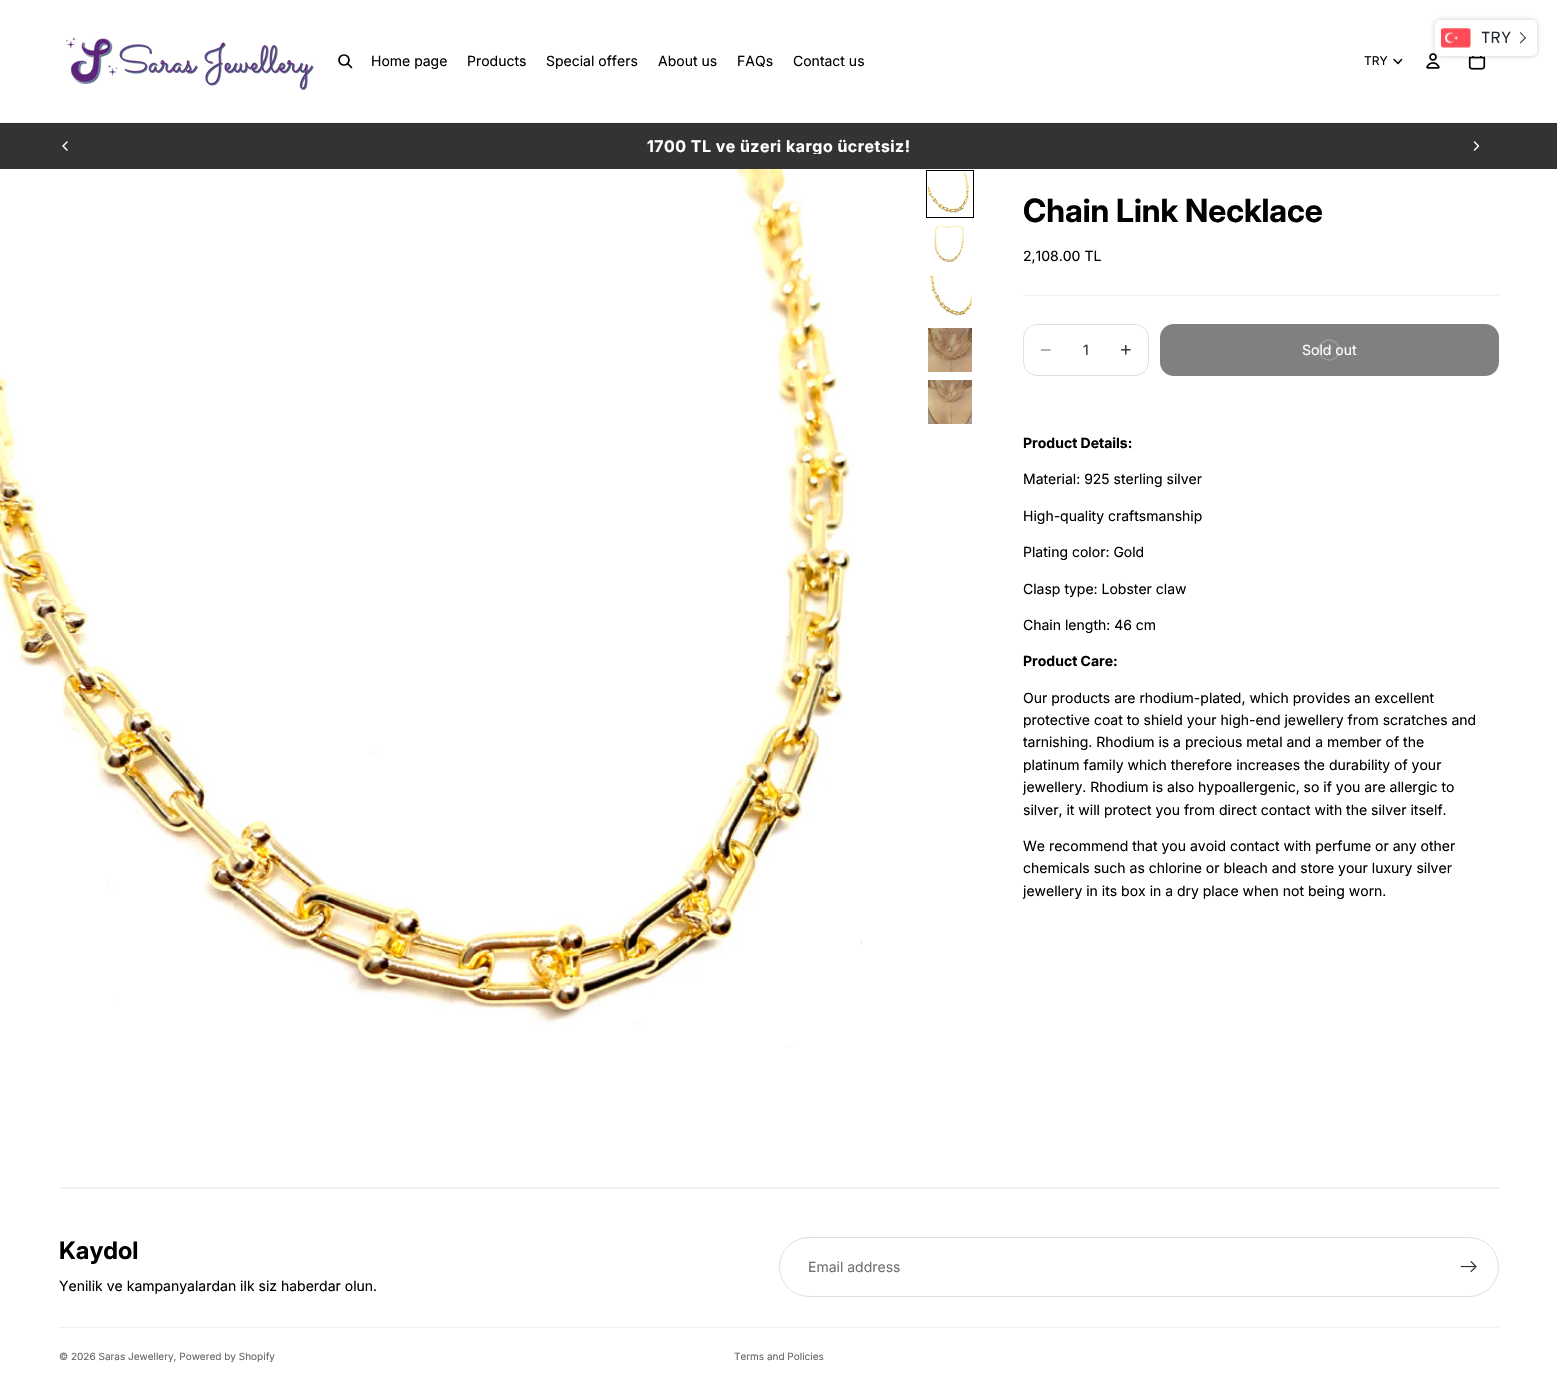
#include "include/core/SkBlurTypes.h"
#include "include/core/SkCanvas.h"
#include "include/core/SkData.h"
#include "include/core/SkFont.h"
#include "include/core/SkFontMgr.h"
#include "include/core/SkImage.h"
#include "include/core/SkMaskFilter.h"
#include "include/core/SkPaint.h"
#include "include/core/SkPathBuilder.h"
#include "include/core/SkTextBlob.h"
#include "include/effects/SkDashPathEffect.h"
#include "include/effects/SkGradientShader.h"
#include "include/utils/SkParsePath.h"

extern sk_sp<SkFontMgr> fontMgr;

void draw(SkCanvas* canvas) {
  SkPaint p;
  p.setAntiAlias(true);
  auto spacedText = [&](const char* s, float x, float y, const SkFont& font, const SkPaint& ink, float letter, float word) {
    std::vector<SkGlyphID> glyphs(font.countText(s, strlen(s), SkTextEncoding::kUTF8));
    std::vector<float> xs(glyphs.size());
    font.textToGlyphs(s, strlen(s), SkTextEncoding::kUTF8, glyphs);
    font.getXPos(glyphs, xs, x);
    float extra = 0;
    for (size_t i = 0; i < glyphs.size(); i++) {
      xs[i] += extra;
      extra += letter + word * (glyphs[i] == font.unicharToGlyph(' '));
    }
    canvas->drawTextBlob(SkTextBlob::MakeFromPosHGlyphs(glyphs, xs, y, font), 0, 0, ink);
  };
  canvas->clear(SK_ColorWHITE);
  p.setColor(SkColorSetRGB(240, 240, 240));
  canvas->drawRect(SkRect::MakeLTRB(60, 1187, 1499, 1189), p);
  canvas->drawImageRect(SkImages::DeferredFromEncodedData(SkData::MakeFromFileName("images/3.png")), SkRect::MakeLTRB(1426, 53, 1440, 69), SkSamplingOptions());
  canvas->drawImageRect(SkImages::DeferredFromEncodedData(SkData::MakeFromFileName("images/4.png")), SkRect::MakeLTRB(1468, 56, 1486, 70), SkSamplingOptions());
  p.setColor(SkColorSetARGB(64, 33, 43, 54));
  p.setMaskFilter(SkMaskFilter::MakeBlur(kNormal_SkBlurStyle, 2.5f));
  canvas->drawRoundRect(SkRect::MakeLTRB(1435, 20, 1537, 56), 5, 5, p);
  p.setMaskFilter(nullptr);
  p.setColor(SK_ColorWHITE);
  canvas->drawRoundRect(SkRect::MakeLTRB(1435, 20, 1537, 56), 5, 5, p);
  canvas->drawImageRect(SkImages::DeferredFromEncodedData(SkData::MakeFromFileName("images/1.png")), SkRect::MakeLTRB(1441, 28, 1471, 48), SkSamplingOptions());
  p.setColor(SkColorSetRGB(33, 43, 54));
  canvas->drawPath(SkPathBuilder().moveTo(1520, 33).lineTo(1520.5f, 32).lineTo(1526, 38).lineTo(1525.5f, 38.5f).close().detach(), p);
  canvas->drawPath(SkPathBuilder().moveTo(1520, 42.5f).lineTo(1525.5f, 37).lineTo(1526, 38).lineTo(1520.5f, 43.5f).close().detach(), p);
  p.setColor(SkColorSetRGB(240, 240, 240));
  canvas->drawRect(SkRect::MakeLTRB(0, 122, 1557, 123), p);
  canvas->drawImageRect(SkImages::DeferredFromEncodedData(SkData::MakeFromFileName("images/2.png")), SkRect::MakeLTRB(66, 37, 314, 90), SkSamplingOptions());
  p.setStyle(SkPaint::kStroke_Style);
  p.setStrokeWidth(1.7f);
  p.setColor(SK_ColorBLACK);
  canvas->drawCircle(344, 60, 5, p);
  p.setStrokeCap(SkPaint::kRound_Cap);
  p.setStrokeJoin(SkPaint::kRound_Join);
  canvas->drawPath(SkPathBuilder().moveTo(348, 64).lineTo(351.5f, 67.5f).detach(), p);
  p.setStrokeWidth(1.5f);
  canvas->drawPath(SkPathBuilder().moveTo(1401.5f, 59.5f).lineTo(1398, 63.5f).lineTo(1394, 59.5f).detach(), p);
  p.setStyle(SkPaint::kFill_Style);
  p.setColor(SkColorSetRGB(51, 51, 51));
  canvas->drawRect(SkRect::MakeLTRB(0, 123, 1557, 169), p);
  p.setStyle(SkPaint::kStroke_Style);
  p.setColor(SK_ColorWHITE);
  canvas->drawPath(SkPathBuilder().moveTo(67, 142).lineTo(63, 146).lineTo(67, 150).detach(), p);
  canvas->drawPath(SkPathBuilder().moveTo(1474.5f, 142).lineTo(1478.5f, 146).lineTo(1474.5f, 150).detach(), p);
  canvas->drawImageRect(SkImages::DeferredFromEncodedData(SkData::MakeFromFileName("images/5.png")), SkRect::MakeLTRB(0, 169, 863, 1048), SkSamplingOptions());
  canvas->drawImageRect(SkImages::DeferredFromEncodedData(SkData::MakeFromFileName("images/6.png")), SkRect::MakeLTRB(928, 172, 970, 213), SkSamplingOptions());
  p.setStrokeWidth(1);
  p.setStrokeCap(SkPaint::kButt_Cap);
  p.setStrokeJoin(SkPaint::kMiter_Join);
  p.setColor(SK_ColorBLACK);
  canvas->drawRect(SkRect::MakeLTRB(926.5f, 170.5f, 973.5f, 217.5f), p);
  canvas->drawImageRect(SkImages::DeferredFromEncodedData(SkData::MakeFromFileName("images/7.png")), SkRect::MakeLTRB(934, 225, 965, 263), SkSamplingOptions());
  canvas->drawImageRect(SkImages::DeferredFromEncodedData(SkData::MakeFromFileName("images/8.png")), SkRect::MakeLTRB(930, 276, 972, 316), SkSamplingOptions());
  canvas->drawImageRect(SkImages::DeferredFromEncodedData(SkData::MakeFromFileName("images/9.png")), SkRect::MakeLTRB(928, 328, 972, 372), SkSamplingOptions());
  canvas->drawImageRect(SkImages::DeferredFromEncodedData(SkData::MakeFromFileName("images/10.png")), SkRect::MakeLTRB(928, 380, 972, 424), SkSamplingOptions());
  p.setStyle(SkPaint::kFill_Style);
  p.setColor(SkColorSetRGB(240, 240, 240));
  canvas->drawPath(SkPathBuilder().moveTo(1499, 295).lineTo(1499, 296).lineTo(1498, 295).close().detach(), p);
  p.setColor(SkColorSetARGB(15, 0, 0, 0));
  canvas->drawPath(SkPathBuilder().moveTo(1499, 296).lineTo(1023, 296).lineTo(1023, 295).lineTo(1498, 295).close().detach(), p);
  p.setStyle(SkPaint::kStroke_Style);
  p.setColor(SkColorSetRGB(223, 223, 223));
  canvas->drawRoundRect(SkRect::MakeLTRB(1023.5f, 324.5f, 1148.5f, 375.5f), 13.5f, 13.5f, p);
  p.setStrokeWidth(1.5f);
  p.setStrokeCap(SkPaint::kRound_Cap);
  p.setColor(SkColorSetRGB(153, 153, 153));
  canvas->drawPath(SkPathBuilder().moveTo(1041.5f, 350).lineTo(1050, 350).detach(), p);
  canvas->drawImageRect(SkImages::DeferredFromEncodedData(SkData::MakeFromFileName("images/11.png")), SkRect::MakeLTRB(1120, 344, 1131, 355), SkSamplingOptions());
  p.setStyle(SkPaint::kFill_Style);
  p.setColor(SkColorSetRGB(128, 128, 128));
  canvas->drawRoundRect(SkRect::MakeLTRB(1160, 324, 1499, 376), 14, 14, p);
  p.setColor(SkColorSetRGB(226, 226, 226));
  canvas->drawRect(SkRect::MakeLTRB(1497, 1188, 1499, 1189), p);
  p.setStyle(SkPaint::kStroke_Style);
  p.setStrokeWidth(1);
  p.setStrokeCap(SkPaint::kButt_Cap);
  p.setColor(SkColorSetRGB(223, 223, 223));
  canvas->drawRoundRect(SkRect::MakeLTRB(779.5f, 1237.5f, 1498.5f, 1296.5f), 29.5f, 29.5f, p);
  canvas->drawImageRect(SkImages::DeferredFromEncodedData(SkData::MakeFromFileName("images/12.png")), SkRect::MakeLTRB(1460, 1261, 1477, 1272), SkSamplingOptions());
  p.setStyle(SkPaint::kFill_Style);
  p.setColor(SkColorSetRGB(240, 240, 240));
  canvas->drawRect(SkRect::MakeLTRB(59, 1327, 1499, 1328), p);
  SkFont font1(fontMgr->matchFamilyStyle("Overpass", SkFontStyle::Normal()), 16);
  font1.setSubpixel(true);
  p.setColor(SkColorSetRGB(33, 43, 54));
  canvas->drawString("TRY", 1481, 43, font1, p);
  SkFont font2(fontMgr->matchFamilyStyle("Inter", SkFontStyle::Normal()), 14);
  font2.setSubpixel(true);
  p.setColor(SK_ColorBLACK);
  canvas->drawString("Home page", 371, 66, font2, p);
  canvas->drawString("Products", 467, 66, font2, p);
  canvas->drawString("Special offers", 546, 66, font2, p);
  canvas->drawString("About us", 658, 66, font2, p);
  canvas->drawString("FAQs", 737, 66, font2, p);
  canvas->drawString("Contact us", 793, 66, font2, p);
  SkFont font3(fontMgr->matchFamilyStyle("Inter", SkFontStyle::Normal()), 12);
  font3.setSubpixel(true);
  canvas->drawString("TRY", 1364, 65, font3, p);
  canvas->save();
  canvas->clipRect(SkRect::MakeLTRB(439, 138, 1119, 154));
  SkFont font4(fontMgr->matchFamilyStyle("Inter", SkFontStyle::Bold()), 16);
  font4.setSubpixel(true);
  p.setColor(SK_ColorWHITE);
  spacedText("1700 TL ve üzeri kargo ücretsiz!", 647, 152, font4, p, 0.5f, 0);
  canvas->restore();
  SkFont font5(fontMgr->matchFamilyStyle("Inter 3", SkFontStyle::Bold()), 32);
  font5.setSubpixel(true);
  p.setColor(SK_ColorBLACK);
  canvas->drawString("Chain Link Necklace", 1023, 222, font5, p);
  canvas->drawString("2,108.00 TL", 1023, 261, font2, p);
  p.setColor(SkColorSetRGB(51, 51, 51));
  canvas->drawString("1", 1083, 355, font2, p);
  p.setColor(SK_ColorWHITE);
  canvas->drawString("Sold out", 1302, 355, font2, p);
  p.setStyle(SkPaint::kStroke_Style);
  p.setStrokeWidth(1.5f);
  p.setColor(SkColorSetARGB(51, 255, 255, 255));
  canvas->drawCircle(1329, 350, 10, p);
  p.setStrokeCap(SkPaint::kRound_Cap);
  p.setStrokeJoin(SkPaint::kRound_Join);
  canvas->drawPath(SkPathBuilder().moveTo(1326, 350.5f).lineTo(1328, 353).lineTo(1332, 347.5f).detach(), p);
  SkFont font6(fontMgr->matchFamilyStyle("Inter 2", SkFontStyle::Bold()), 14);
  font6.setSubpixel(true);
  p.setStyle(SkPaint::kFill_Style);
  p.setColor(SK_ColorBLACK);
  canvas->drawString("Product Details:", 1023, 448, font6, p);
  canvas->drawString("Material: 925 sterling silver", 1023, 484, font2, p);
  canvas->drawString("High-quality craftsmanship", 1023, 521, font2, p);
  canvas->drawString("Plating color: Gold", 1023, 557, font2, p);
  canvas->drawString("Clasp type: Lobster claw", 1023, 594, font2, p);
  canvas->drawString("Chain length: 46 cm", 1023, 630, font2, p);
  canvas->drawString("Product Care:", 1023, 666, font6, p);
  canvas->drawString("Our products are rhodium-plated, which provides an excellent", 1023, 703, font2, p);
  canvas->drawString("protective coat to shield your high-end jewellery from scratches and", 1023, 725, font2, p);
  canvas->drawString("tarnishing. Rhodium is a precious metal and a member of the", 1023, 747, font2, p);
  canvas->drawString("platinum family which therefore increases the durability of your", 1023, 770, font2, p);
  canvas->drawString("jewellery. Rhodium is also hypoallergenic, so if you are allergic to", 1023, 792, font2, p);
  canvas->drawString("silver, it will protect you from direct contact with the silver itself.", 1023, 815, font2, p);
  canvas->drawString("We recommend that you avoid contact with perfume or any other", 1023, 851, font2, p);
  canvas->drawString("chemicals such as chlorine or bleach and store your luxury silver", 1023, 873, font2, p);
  canvas->drawString("jewellery in its box in a dry place when not being worn.", 1023, 896, font2, p);
  SkFont font7(fontMgr->matchFamilyStyle("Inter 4", SkFontStyle::Bold()), 24);
  font7.setSubpixel(true);
  canvas->drawString("Kaydol", 59, 1259, font7, p);
  canvas->drawString("Yenilik ve kampanyalardan ilk siz haberdar olun.", 59, 1291, font2, p);
  p.setColor(SkColorSetRGB(112, 112, 112));
  canvas->drawString("Email address", 808, 1272, font2, p);
  SkFont font8(fontMgr->matchFamilyStyle("Inter", SkFontStyle::Normal()), 10);
  font8.setSubpixel(true);
  p.setColor(SkColorSetRGB(102, 102, 102));
  canvas->drawString("© 2026 Saras Jewellery, Powered by Shopify", 59, 1360, font8, p);
  canvas->drawString("Terms and Policies", 734, 1360, font8, p);
}
